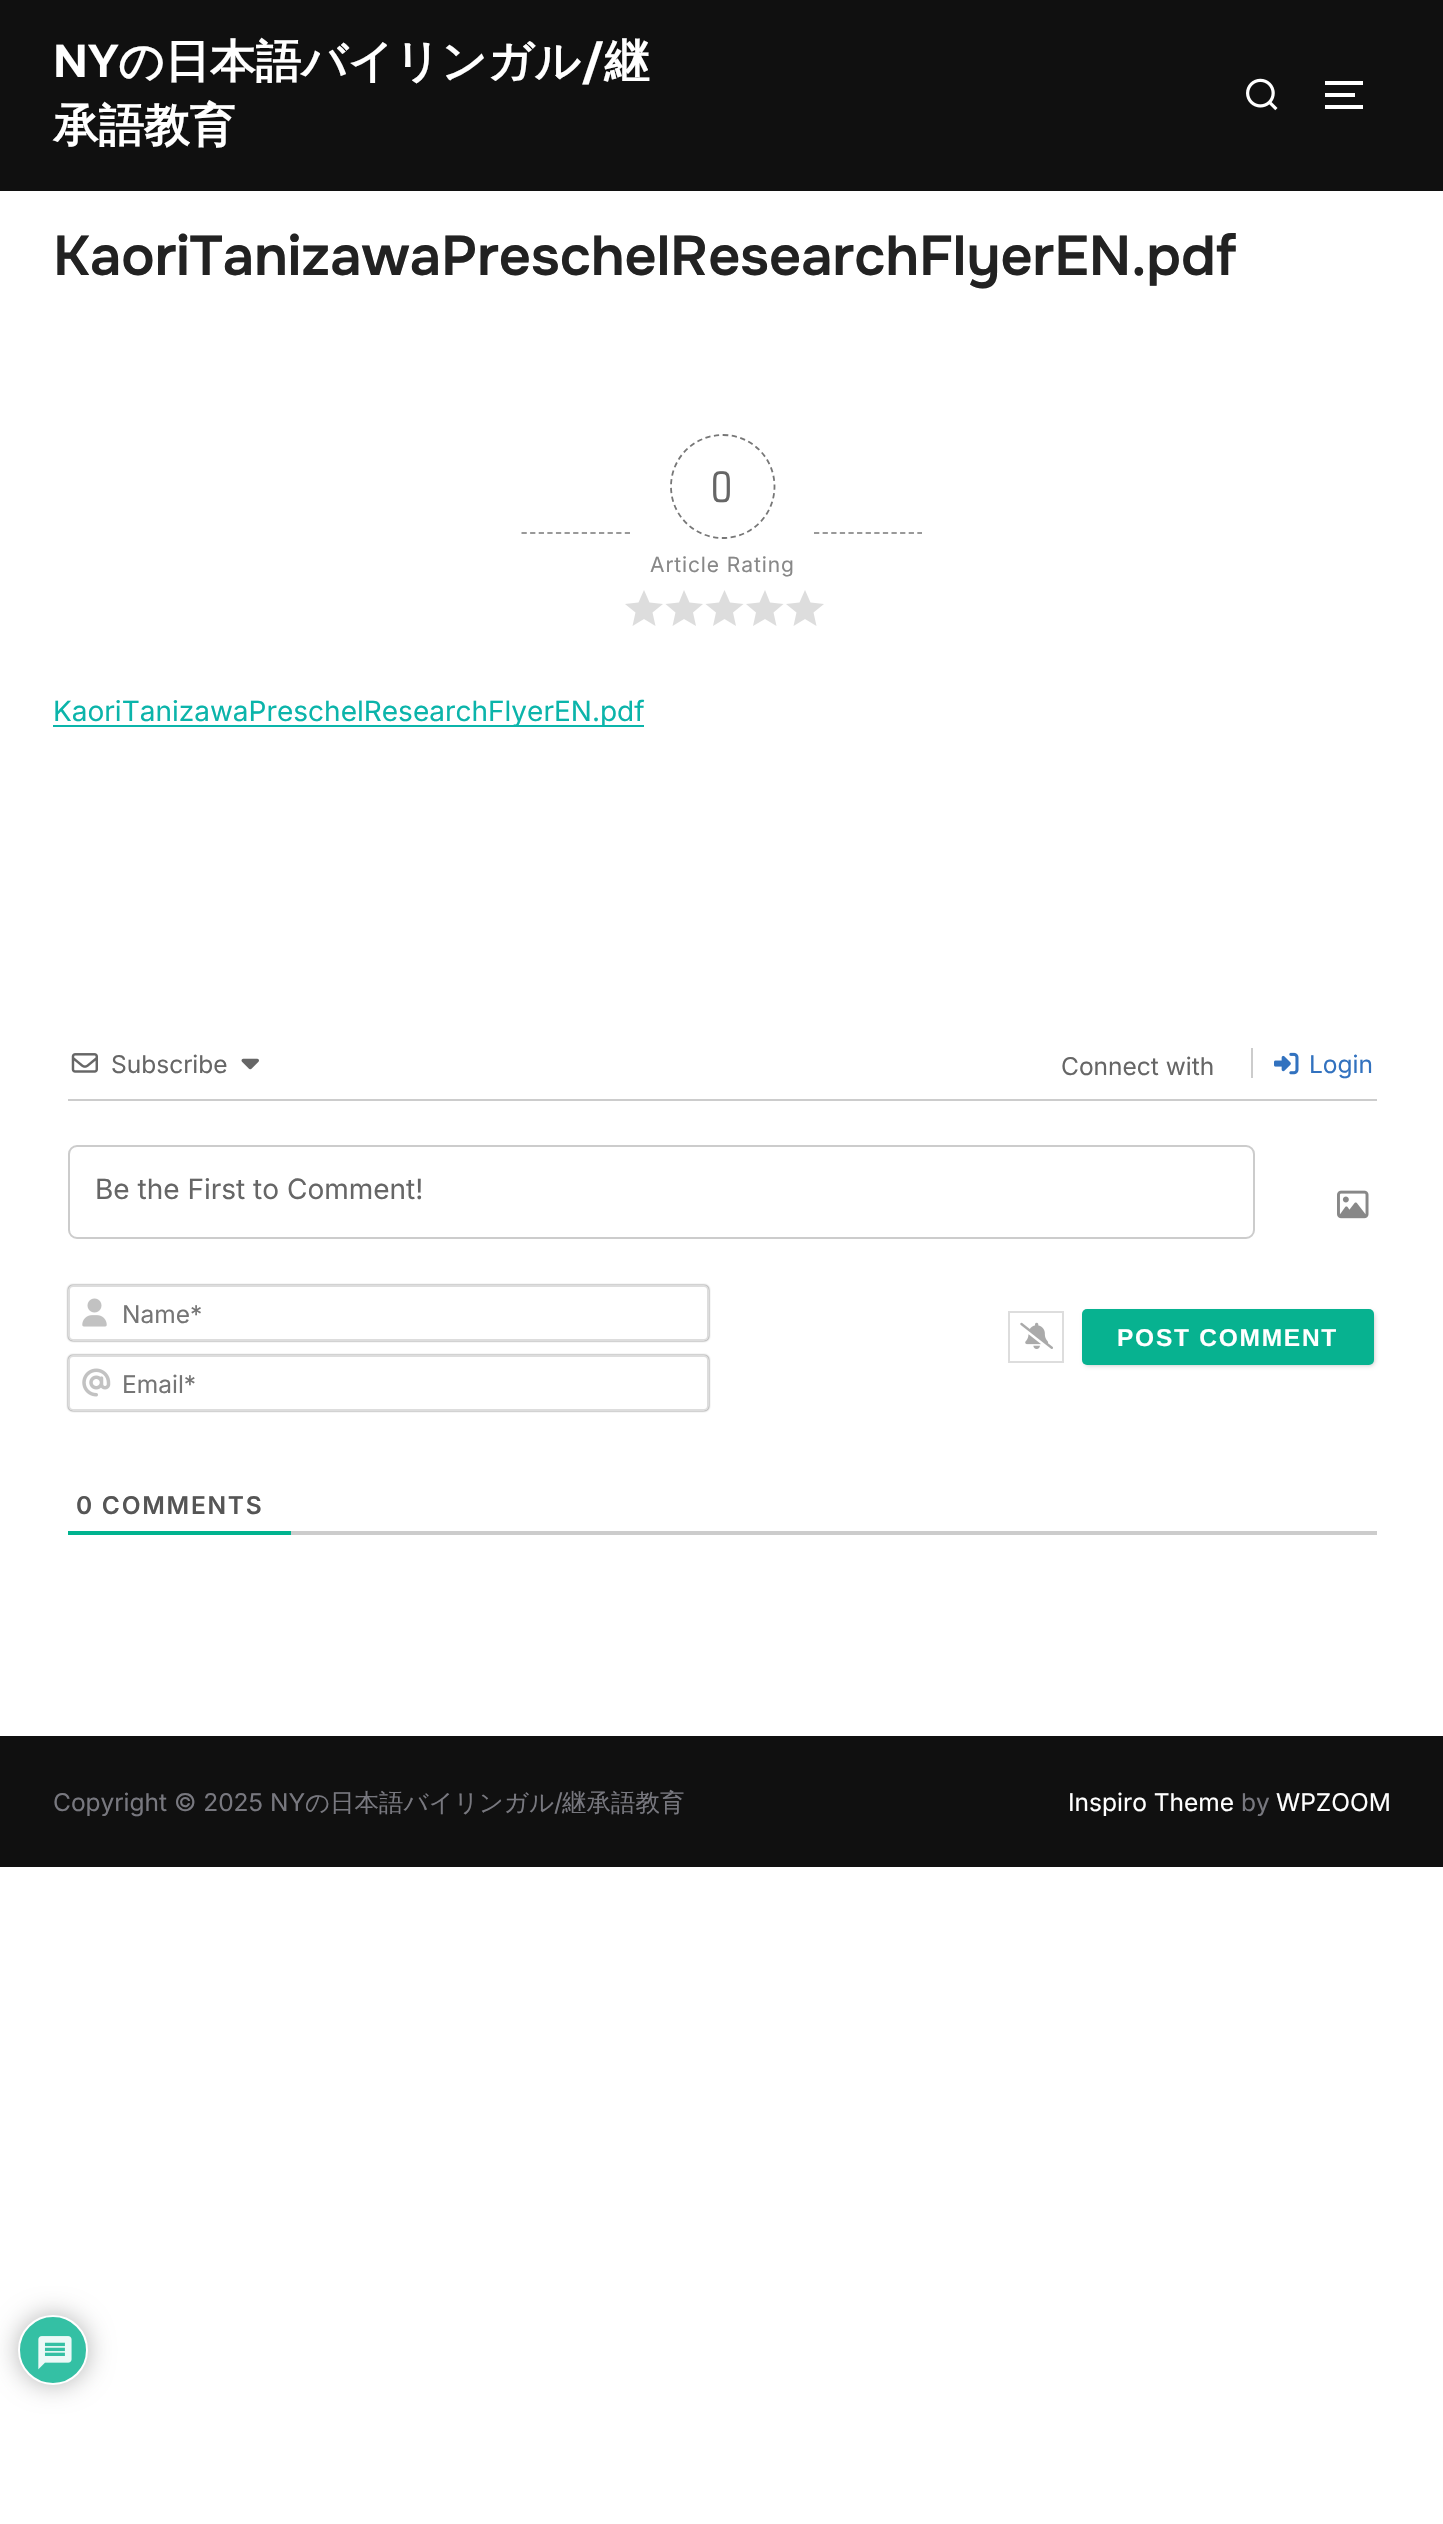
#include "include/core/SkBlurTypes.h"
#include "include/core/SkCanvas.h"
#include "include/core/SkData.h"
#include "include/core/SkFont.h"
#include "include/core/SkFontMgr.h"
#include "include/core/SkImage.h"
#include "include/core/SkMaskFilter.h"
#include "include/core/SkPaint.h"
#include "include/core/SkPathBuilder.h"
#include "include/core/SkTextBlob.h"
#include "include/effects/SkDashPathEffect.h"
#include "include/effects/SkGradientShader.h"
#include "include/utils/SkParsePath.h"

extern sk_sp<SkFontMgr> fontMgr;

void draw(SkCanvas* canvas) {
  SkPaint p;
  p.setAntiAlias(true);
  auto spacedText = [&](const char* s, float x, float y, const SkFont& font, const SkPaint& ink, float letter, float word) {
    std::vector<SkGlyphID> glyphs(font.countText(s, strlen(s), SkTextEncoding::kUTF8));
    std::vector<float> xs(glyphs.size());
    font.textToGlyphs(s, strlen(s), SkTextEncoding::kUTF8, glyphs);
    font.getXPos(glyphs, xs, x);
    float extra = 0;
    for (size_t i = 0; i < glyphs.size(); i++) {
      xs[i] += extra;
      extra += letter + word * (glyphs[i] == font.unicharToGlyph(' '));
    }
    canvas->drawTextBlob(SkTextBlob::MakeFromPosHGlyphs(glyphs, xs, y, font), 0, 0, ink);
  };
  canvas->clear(SK_ColorWHITE);
  p.setColor(SkColorSetRGB(16, 16, 16));
  canvas->drawRect(SkRect::MakeLTRB(0, 0, 1443, 191), p);
  canvas->drawImageRect(SkImages::DeferredFromEncodedData(SkData::MakeFromFileName("images/1.png")), SkRect::MakeLTRB(1246, 78, 1278, 111), SkSamplingOptions());
  p.setColor(SK_ColorWHITE);
  canvas->drawRect(SkRect::MakeLTRB(1325, 81, 1363, 85), p);
  canvas->drawRect(SkRect::MakeLTRB(1325, 93, 1355, 97), p);
  canvas->drawRect(SkRect::MakeLTRB(1325, 105, 1363, 109), p);
  p.setStyle(SkPaint::kStroke_Style);
  p.setStrokeWidth(1.8f);
  p.setColor(SkColorSetRGB(153, 153, 153));
  p.setPathEffect(SkDashPathEffect::Make({{5.25f, 3.36f}}, 0));
  canvas->drawPath(SkPathBuilder().moveTo(521.5f, 533).lineTo(630, 533).detach(), p);
  p.setPathEffect(nullptr);
  p.setColor(SkColorSetRGB(119, 119, 119));
  p.setPathEffect(SkDashPathEffect::Make({{5.25f, 3.5f}}, 0));
  canvas->drawPath(SkPathBuilder().moveTo(723, 435).cubicTo(751.5f, 435, 774.5f, 458, 774.5f, 486.5f).cubicTo(774.5f, 515, 751.5f, 538, 723, 538).cubicTo(694, 538, 671, 515, 671, 486.5f).cubicTo(671, 458, 694, 435, 723, 435).close().detach(), p);
  p.setPathEffect(nullptr);
  p.setStyle(SkPaint::kFill_Style);
  p.setColor(SkColorSetRGB(221, 221, 221));
  canvas->drawPath(SkPathBuilder().moveTo(644, 619).lineTo(655.5f, 626).lineTo(652.5f, 612.5f).lineTo(663, 604).lineTo(649.5f, 602.5f).lineTo(644, 590).lineTo(638.5f, 602.5f).lineTo(625, 604).lineTo(635.5f, 612.5f).lineTo(632.5f, 626).close().detach(), p);
  canvas->drawPath(SkPathBuilder().moveTo(684, 619).lineTo(696, 626).lineTo(693, 612.5f).lineTo(703, 604).lineTo(689.5f, 602.5f).lineTo(684, 590).lineTo(679, 602.5f).lineTo(665.5f, 604).lineTo(675.5f, 612.5f).lineTo(672.5f, 626).close().detach(), p);
  canvas->drawPath(SkPathBuilder().moveTo(724.5f, 619).lineTo(736, 626).lineTo(733, 612.5f).lineTo(743.5f, 604).lineTo(730, 602.5f).lineTo(724.5f, 590).lineTo(719, 602.5f).lineTo(705.5f, 604).lineTo(716, 612.5f).lineTo(713, 626).close().detach(), p);
  canvas->drawPath(SkPathBuilder().moveTo(765, 619).lineTo(776.5f, 626).lineTo(773.5f, 612.5f).lineTo(783.5f, 604).lineTo(770, 602.5f).lineTo(765, 590).lineTo(759.5f, 602.5f).lineTo(746, 604).lineTo(756, 612.5f).lineTo(753, 626).close().detach(), p);
  canvas->drawPath(SkPathBuilder().moveTo(805, 619).lineTo(816.5f, 626).lineTo(813.5f, 612.5f).lineTo(824, 604).lineTo(810.5f, 602.5f).lineTo(805, 590).lineTo(799.5f, 602.5f).lineTo(786, 604).lineTo(796.5f, 612.5f).lineTo(793.5f, 626).close().detach(), p);
  p.setStyle(SkPaint::kStroke_Style);
  p.setColor(SkColorSetRGB(153, 153, 153));
  p.setPathEffect(SkDashPathEffect::Make({{5.25f, 3.36f}}, 0));
  canvas->drawPath(SkPathBuilder().moveTo(814, 533).lineTo(922, 533).detach(), p);
  p.setPathEffect(nullptr);
  p.setStyle(SkPaint::kFill_Style);
  p.setColor(SkColorSetRGB(11, 180, 170));
  canvas->drawRect(SkRect::MakeLTRB(53, 725, 644, 727), p);
  p.setColor(SkColorSetRGB(204, 204, 204));
  canvas->drawRect(SkRect::MakeLTRB(68, 1099, 1377, 1101), p);
  canvas->drawImageRect(SkImages::DeferredFromEncodedData(SkData::MakeFromFileName("images/2.png")), SkRect::MakeLTRB(71, 1053, 98, 1073), SkSamplingOptions());
  canvas->drawImageRect(SkImages::DeferredFromEncodedData(SkData::MakeFromFileName("images/3.png")), SkRect::MakeLTRB(241, 1058, 259, 1070), SkSamplingOptions());
  canvas->drawRect(SkRect::MakeLTRB(1251, 1048, 1253, 1078), p);
  canvas->drawImageRect(SkImages::DeferredFromEncodedData(SkData::MakeFromFileName("images/4.png")), SkRect::MakeLTRB(1274, 1052, 1299, 1075), SkSamplingOptions());
  p.setStyle(SkPaint::kStroke_Style);
  p.setStrokeWidth(2);
  canvas->drawRoundRect(SkRect::MakeLTRB(69, 1146, 1254, 1238), 8, 8, p);
  canvas->drawImageRect(SkImages::DeferredFromEncodedData(SkData::MakeFromFileName("images/5.png")), SkRect::MakeLTRB(1337, 1190, 1369, 1219), SkSamplingOptions());
  p.setStyle(SkPaint::kFill_Style);
  p.setColor(SkColorSetRGB(85, 85, 85));
  p.setMaskFilter(SkMaskFilter::MakeBlur(kNormal_SkBlurStyle, 1));
  canvas->drawRoundRect(SkRect::MakeLTRB(68, 1285, 709, 1341), 5, 5, p);
  p.setMaskFilter(nullptr);
  p.setColor(SK_ColorWHITE);
  canvas->drawRoundRect(SkRect::MakeLTRB(69, 1286, 708, 1340), 4, 4, p);
  p.setStyle(SkPaint::kStroke_Style);
  p.setColor(SkColorSetRGB(221, 221, 221));
  canvas->drawRoundRect(SkRect::MakeLTRB(69, 1286, 708, 1340), 4, 4, p);
  canvas->drawImageRect(SkImages::DeferredFromEncodedData(SkData::MakeFromFileName("images/6.png")), SkRect::MakeLTRB(82, 1298, 107, 1327), SkSamplingOptions());
  p.setStyle(SkPaint::kFill_Style);
  p.setColor(SkColorSetRGB(85, 85, 85));
  p.setMaskFilter(SkMaskFilter::MakeBlur(kNormal_SkBlurStyle, 1));
  canvas->drawRoundRect(SkRect::MakeLTRB(68, 1355, 709, 1411), 5, 5, p);
  p.setMaskFilter(nullptr);
  p.setColor(SK_ColorWHITE);
  canvas->drawRoundRect(SkRect::MakeLTRB(69, 1356, 708, 1410), 4, 4, p);
  p.setStyle(SkPaint::kStroke_Style);
  p.setColor(SkColorSetRGB(221, 221, 221));
  canvas->drawRoundRect(SkRect::MakeLTRB(69, 1356, 708, 1410), 4, 4, p);
  canvas->drawImageRect(SkImages::DeferredFromEncodedData(SkData::MakeFromFileName("images/7.png")), SkRect::MakeLTRB(82, 1368, 111, 1397), SkSamplingOptions());
  canvas->drawRect(SkRect::MakeLTRB(1009, 1312, 1063, 1362), p);
  canvas->drawImageRect(SkImages::DeferredFromEncodedData(SkData::MakeFromFileName("images/8.png")), SkRect::MakeLTRB(1020, 1322, 1053, 1349), SkSamplingOptions());
  p.setStyle(SkPaint::kFill_Style);
  p.setColor(SkColorSetRGB(187, 187, 187));
  p.setMaskFilter(SkMaskFilter::MakeBlur(kNormal_SkBlurStyle, 2.5f));
  canvas->drawRoundRect(SkRect::MakeLTRB(1085, 1313, 1374, 1365), 4, 4, p);
  p.setMaskFilter(nullptr);
  p.setColor(SkColorSetRGB(7, 178, 144));
  canvas->drawRoundRect(SkRect::MakeLTRB(1082, 1309, 1374, 1365), 5, 5, p);
  p.setColor(SkColorSetRGB(204, 204, 204));
  canvas->drawRect(SkRect::MakeLTRB(291, 1531, 1377, 1535), p);
  p.setColor(SkColorSetRGB(0, 179, 143));
  canvas->drawRect(SkRect::MakeLTRB(68, 1531, 291, 1535), p);
  p.setColor(SkColorSetRGB(16, 16, 16));
  canvas->drawRect(SkRect::MakeLTRB(0, 1736, 1443, 1867), p);
  p.setColor(SkColorSetRGB(179, 179, 179));
  p.setMaskFilter(SkMaskFilter::MakeBlur(kNormal_SkBlurStyle, 13));
  canvas->drawRoundRect(SkRect::MakeLTRB(18, 2315, 88, 2385), 35, 35, p);
  p.setMaskFilter(nullptr);
  p.setColor(SkColorSetRGB(52, 192, 164));
  canvas->drawCircle(53, 2350, 34, p);
  p.setStyle(SkPaint::kStroke_Style);
  p.setColor(SK_ColorWHITE);
  canvas->drawCircle(53, 2350, 34, p);
  canvas->drawImageRect(SkImages::DeferredFromEncodedData(SkData::MakeFromFileName("images/9.png")), SkRect::MakeLTRB(38, 2336, 72, 2370), SkSamplingOptions());
  SkFont font1(fontMgr->matchFamilyStyle("Onest", SkFontStyle::Bold()), 45.5f);
  font1.setSubpixel(true);
  p.setStyle(SkPaint::kFill_Style);
  canvas->drawString("NY", 53, 77, font1, p);
  SkFont font2(fontMgr->matchFamilyStyle("WenQuanYi Zen Hei", SkFontStyle::Bold()), 45.5f);
  font2.setSubpixel(true);
  canvas->drawString("の日本語バイリンガル", 118, 77, font2, p);
  canvas->drawString("/", 581, 77, font1, p);
  canvas->drawString("継", 604, 77, font2, p);
  canvas->drawString("承語教育", 53, 141, font2, p);
  SkFont font3(fontMgr->matchFamilyStyle("Onest", SkFontStyle(600, SkFontStyle::kNormal_Width, SkFontStyle::kUpright_Slant)), 56);
  font3.setSubpixel(true);
  p.setColor(SkColorSetRGB(34, 34, 34));
  canvas->drawString("KaoriTanizawaPreschelResearchFlyerEN.pdf", 53, 275, font3, p);
  SkFont font4(fontMgr->matchFamilyStyle("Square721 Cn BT", SkFontStyle::Normal()), 42);
  font4.setSubpixel(true);
  p.setColor(SkColorSetRGB(102, 102, 102));
  canvas->drawString("0", 711, 502, font4, p);
  SkFont font5(fontMgr->matchFamilyStyle("Inter", SkFontStyle::Normal()), 21);
  font5.setSubpixel(true);
  p.setColor(SkColorSetRGB(136, 136, 136));
  spacedText("Article Rating", 650, 572, font5, p, 0.9f, 0);
  SkFont font6(fontMgr->matchFamilyStyle("Inter", SkFontStyle::Normal()), 28);
  font6.setSubpixel(true);
  p.setColor(SkColorSetRGB(11, 180, 170));
  canvas->drawString("KaoriTanizawaPreschelResearchFlyerEN.pdf", 53, 721, font6, p);
  SkFont font7(fontMgr->matchFamilyStyle("Inter", SkFontStyle::Normal()), 24.5f);
  font7.setSubpixel(true);
  p.setColor(SkColorSetRGB(102, 102, 102));
  canvas->drawString("Subscribe", 111, 1073, font7, p);
  canvas->drawString("Connect with", 1061, 1075, font7, p);
  p.setColor(SkColorSetRGB(50, 114, 191));
  canvas->drawString("Login", 1309, 1073, font7, p);
  p.setColor(SkColorSetRGB(102, 102, 102));
  canvas->drawString("Be the First to Comment!", 95, 1199, font6, p);
  p.setColor(SkColorSetRGB(117, 117, 117));
  canvas->drawString("Name*", 122, 1323, font7, p);
  canvas->drawString("Email*", 122, 1393, font7, p);
  SkFont font8(fontMgr->matchFamilyStyle("Liberation Sans", SkFontStyle::Bold()), 24.5f);
  font8.setSubpixel(true);
  p.setColor(SK_ColorWHITE);
  spacedText("POST COMMENT", 1117, 1346, font8, p, 1.75f, 0);
  SkFont font9(fontMgr->matchFamilyStyle("Inter", SkFontStyle(600, SkFontStyle::kNormal_Width, SkFontStyle::kUpright_Slant)), 24.5f);
  font9.setSubpixel(true);
  p.setColor(SkColorSetRGB(85, 85, 85));
  spacedText("0 COMMENTS", 76, 1514, font9, p, 1.75f, 0);
  p.setColor(SkColorSetRGB(120, 120, 127));
  canvas->drawString("Copyright © 2025 NY", 53, 1811, font7, p);
  SkFont font10(fontMgr->matchFamilyStyle("WenQuanYi Zen Hei", SkFontStyle(500, SkFontStyle::kNormal_Width, SkFontStyle::kUpright_Slant)), 24.5f);
  font10.setSubpixel(true);
  canvas->drawString("の日本語バイリンガル", 305, 1811, font10, p);
  canvas->drawString("/", 554, 1811, font7, p);
  canvas->drawString("継承語教育", 562, 1811, font10, p);
  p.setColor(SK_ColorWHITE);
  canvas->drawString("Inspiro Theme", 1068, 1811, font7, p);
  p.setColor(SkColorSetRGB(120, 120, 127));
  canvas->drawString("by", 1241, 1811, font7, p);
  p.setColor(SK_ColorWHITE);
  canvas->drawString("WPZOOM", 1276, 1811, font7, p);
}
